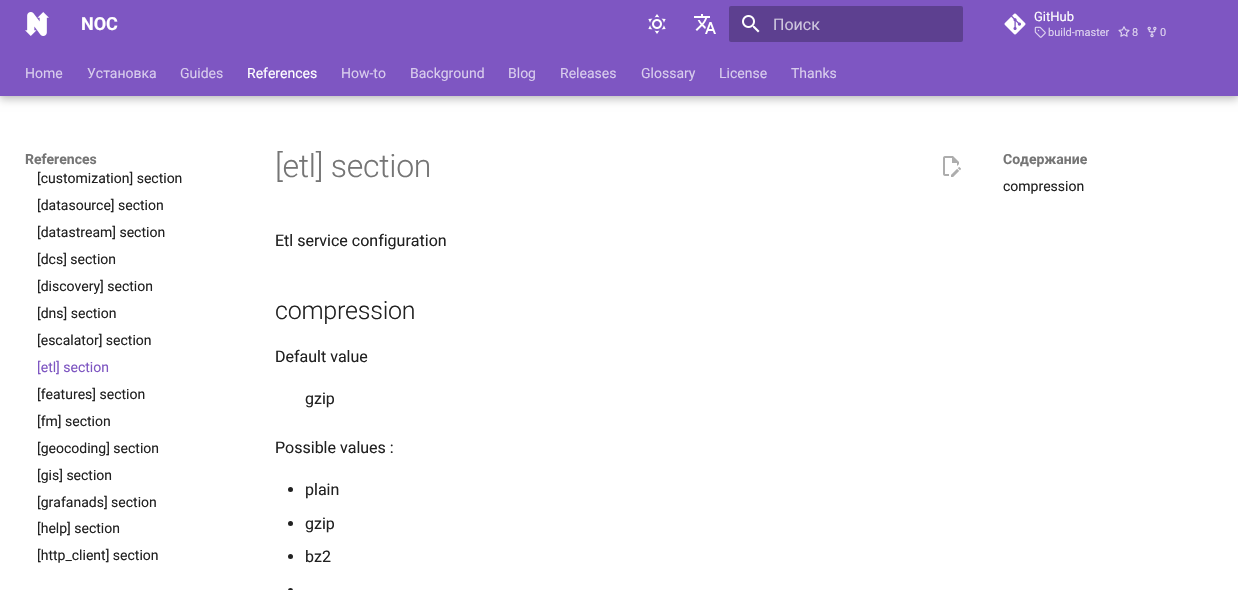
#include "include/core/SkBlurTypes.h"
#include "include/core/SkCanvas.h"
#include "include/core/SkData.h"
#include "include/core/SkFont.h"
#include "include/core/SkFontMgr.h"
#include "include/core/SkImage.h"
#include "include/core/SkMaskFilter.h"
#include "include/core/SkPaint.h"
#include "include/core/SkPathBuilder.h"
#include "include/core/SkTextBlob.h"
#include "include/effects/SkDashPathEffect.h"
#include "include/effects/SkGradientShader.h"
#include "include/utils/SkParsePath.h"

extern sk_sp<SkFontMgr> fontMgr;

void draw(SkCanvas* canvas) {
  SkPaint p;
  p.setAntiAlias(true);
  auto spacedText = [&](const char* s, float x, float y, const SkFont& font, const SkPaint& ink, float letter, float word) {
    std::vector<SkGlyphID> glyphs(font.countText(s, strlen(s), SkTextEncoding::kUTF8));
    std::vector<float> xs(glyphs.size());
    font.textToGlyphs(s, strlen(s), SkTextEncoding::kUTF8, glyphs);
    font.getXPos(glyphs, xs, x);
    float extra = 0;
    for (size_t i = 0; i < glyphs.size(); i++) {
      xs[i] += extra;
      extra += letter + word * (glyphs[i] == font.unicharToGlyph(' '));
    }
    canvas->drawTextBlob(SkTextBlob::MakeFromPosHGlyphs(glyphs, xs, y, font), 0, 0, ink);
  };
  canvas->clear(SK_ColorWHITE);
  p.setColor(SkColorSetARGB(51, 0, 0, 0));
  p.setMaskFilter(SkMaskFilter::MakeBlur(kNormal_SkBlurStyle, 4));
  canvas->drawRect(SkRect::MakeLTRB(0, 4, 1238, 100), p);
  p.setMaskFilter(nullptr);
  p.setColor(SkColorSetARGB(26, 0, 0, 0));
  p.setMaskFilter(SkMaskFilter::MakeBlur(kNormal_SkBlurStyle, 2));
  canvas->drawRect(SkRect::MakeLTRB(0, 0, 1238, 96), p);
  p.setMaskFilter(nullptr);
  p.setColor(SkColorSetRGB(126, 86, 194));
  canvas->drawRect(SkRect::MakeLTRB(0, 0, 1238, 96), p);
  canvas->drawImageRect(SkImages::DeferredFromEncodedData(SkData::MakeFromFileName("images/1.png")), SkRect::MakeLTRB(25, 12, 49, 36), SkSamplingOptions());
  canvas->drawImageRect(SkImages::DeferredFromEncodedData(SkData::MakeFromFileName("images/2.png")), SkRect::MakeLTRB(648, 14, 666, 34), SkSamplingOptions());
  canvas->drawImageRect(SkImages::DeferredFromEncodedData(SkData::MakeFromFileName("images/3.png")), SkRect::MakeLTRB(694, 14, 716, 34), SkSamplingOptions());
  p.setColor(SkColorSetRGB(93, 64, 144));
  canvas->drawRoundRect(SkRect::MakeLTRB(729, 6, 963, 42), 2, 2, p);
  canvas->drawImageRect(SkImages::DeferredFromEncodedData(SkData::MakeFromFileName("images/4.png")), SkRect::MakeLTRB(742, 15, 760, 33), SkSamplingOptions());
  canvas->drawImageRect(SkImages::DeferredFromEncodedData(SkData::MakeFromFileName("images/5.png")), SkRect::MakeLTRB(1004, 13, 1026, 35), SkSamplingOptions());
  canvas->drawImageRect(SkImages::DeferredFromEncodedData(SkData::MakeFromFileName("images/6.png")), SkRect::MakeLTRB(1034, 26, 1046, 38), SkSamplingOptions());
  canvas->drawImageRect(SkImages::DeferredFromEncodedData(SkData::MakeFromFileName("images/7.png")), SkRect::MakeLTRB(1118, 26, 1130, 37), SkSamplingOptions());
  canvas->drawImageRect(SkImages::DeferredFromEncodedData(SkData::MakeFromFileName("images/8.png")), SkRect::MakeLTRB(1147, 26, 1157, 38), SkSamplingOptions());
  canvas->save();
  canvas->clipRect(SkRect::MakeLTRB(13, 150, 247, 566));
  p.setColor(SK_ColorWHITE);
  p.setMaskFilter(SkMaskFilter::MakeBlur(kNormal_SkBlurStyle, 4));
  canvas->drawRect(SkRect::MakeLTRB(17, 142, 243, 176), p);
  p.setMaskFilter(nullptr);
  canvas->restore();
  canvas->drawImageRect(SkImages::DeferredFromEncodedData(SkData::MakeFromFileName("images/9.png")), SkRect::MakeLTRB(943, 156, 961, 177), SkSamplingOptions());
  p.setColor(SkColorSetRGB(33, 33, 33));
  canvas->drawCircle(290.5f, 489.5f, 2.5f, p);
  canvas->drawCircle(290.5f, 523.5f, 2.5f, p);
  canvas->drawCircle(290.5f, 556.5f, 2.5f, p);
  canvas->drawCircle(290.5f, 590.5f, 2.5f, p);
  canvas->save();
  canvas->clipRect(SkRect::MakeLTRB(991, 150, 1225, 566));
  canvas->clipPath(SkPathBuilder(SkPathFillType::kEvenOdd).moveTo(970, 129).lineTo(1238, 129).lineTo(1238, 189).lineTo(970, 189).close().moveTo(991, 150).lineTo(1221, 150).lineTo(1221, 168).lineTo(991, 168).close().detach(), true);
  p.setColor(SK_ColorWHITE);
  p.setMaskFilter(SkMaskFilter::MakeBlur(kNormal_SkBlurStyle, 4));
  canvas->drawRect(SkRect::MakeLTRB(983, 142, 1229, 176), p);
  p.setMaskFilter(nullptr);
  canvas->restore();
  SkFont font1(fontMgr->matchFamilyStyle("Roboto", SkFontStyle::Bold()), 18);
  font1.setSubpixel(true);
  canvas->drawString("NOC", 81, 30, font1, p);
  SkFont font2(fontMgr->matchFamilyStyle("Roboto", SkFontStyle::Normal()), 16);
  font2.setSubpixel(true);
  p.setColor(SkColorSetRGB(206, 198, 222));
  canvas->drawString("Поиск", 773, 30, font2, p);
  SkFont font3(fontMgr->matchFamilyStyle("Roboto", SkFontStyle::Normal()), 13);
  font3.setSubpixel(true);
  p.setColor(SK_ColorWHITE);
  canvas->drawString("GitHub", 1034, 21, font3, p);
  SkFont font4(fontMgr->matchFamilyStyle("Roboto", SkFontStyle::Normal()), 11);
  font4.setSubpixel(true);
  p.setColor(SkColorSetRGB(223, 213, 240));
  canvas->drawString("build-master", 1048, 36, font4, p);
  canvas->drawString("8", 1132, 36, font4, p);
  canvas->drawString("0", 1160, 36, font4, p);
  SkFont font5(fontMgr->matchFamilyStyle("Roboto", SkFontStyle::Normal()), 14);
  font5.setSubpixel(true);
  p.setColor(SkColorSetRGB(216, 204, 237));
  canvas->drawString("Home", 25, 78, font5, p);
  canvas->drawString("Установка", 87, 78, font5, p);
  canvas->drawString("Guides", 180, 78, font5, p);
  p.setColor(SK_ColorWHITE);
  canvas->drawString("References", 247, 78, font5, p);
  p.setColor(SkColorSetRGB(216, 204, 237));
  canvas->drawString("How-to", 341, 78, font5, p);
  canvas->drawString("Background", 410, 78, font5, p);
  canvas->drawString("Blog", 508, 78, font5, p);
  canvas->drawString("Releases", 560, 78, font5, p);
  canvas->drawString("Glossary", 641, 78, font5, p);
  canvas->drawString("License", 719, 78, font5, p);
  canvas->drawString("Thanks", 791, 78, font5, p);
  SkFont font6(fontMgr->matchFamilyStyle("Roboto", SkFontStyle::Bold()), 14);
  font6.setSubpixel(true);
  p.setColor(SkColorSetRGB(117, 117, 117));
  canvas->drawString("References", 25, 164, font6, p);
  p.setColor(SkColorSetRGB(33, 33, 33));
  canvas->drawString("[customization] section", 37, 183, font5, p);
  canvas->drawString("[datasource] section", 37, 210, font5, p);
  canvas->drawString("[datastream] section", 37, 237, font5, p);
  canvas->drawString("[dcs] section", 37, 264, font5, p);
  canvas->drawString("[discovery] section", 37, 291, font5, p);
  canvas->drawString("[dns] section", 37, 318, font5, p);
  canvas->drawString("[escalator] section", 37, 345, font5, p);
  p.setColor(SkColorSetRGB(126, 86, 194));
  canvas->drawString("[etl] section", 37, 372, font5, p);
  p.setColor(SkColorSetRGB(33, 33, 33));
  canvas->drawString("[features] section", 37, 399, font5, p);
  canvas->drawString("[fm] section", 37, 426, font5, p);
  canvas->drawString("[geocoding] section", 37, 453, font5, p);
  canvas->drawString("[gis] section", 37, 480, font5, p);
  canvas->drawString("[grafanads] section", 37, 507, font5, p);
  canvas->drawString("[help] section", 37, 533, font5, p);
  canvas->drawString("[http_client] section", 37, 560, font5, p);
  SkFont font7(fontMgr->matchFamilyStyle("Roboto", SkFontStyle(300, SkFontStyle::kNormal_Width, SkFontStyle::kUpright_Slant)), 32);
  font7.setSubpixel(true);
  p.setColor(SkColorSetRGB(117, 117, 117));
  spacedText("[etl] section", 275, 177, font7, p, -0.25f, 0);
  p.setColor(SkColorSetRGB(33, 33, 33));
  canvas->drawString("Etl service configuration", 275, 246, font2, p);
  SkFont font8(fontMgr->matchFamilyStyle("Roboto", SkFontStyle(300, SkFontStyle::kNormal_Width, SkFontStyle::kUpright_Slant)), 25);
  font8.setSubpixel(true);
  spacedText("compression", 275, 319, font8, p, -0.25f, 0);
  canvas->drawString("Default value", 275, 362, font2, p);
  canvas->drawString("gzip", 305, 404, font2, p);
  canvas->drawString("Possible values :", 275, 453, font2, p);
  canvas->drawString("plain", 305, 495, font2, p);
  canvas->drawString("gzip", 305, 529, font2, p);
  canvas->drawString("bz2", 305, 562, font2, p);
  p.setColor(SkColorSetRGB(117, 117, 117));
  canvas->drawString("Содержание", 1003, 164, font6, p);
  p.setColor(SkColorSetRGB(33, 33, 33));
  canvas->drawString("compression", 1003, 191, font5, p);
}
